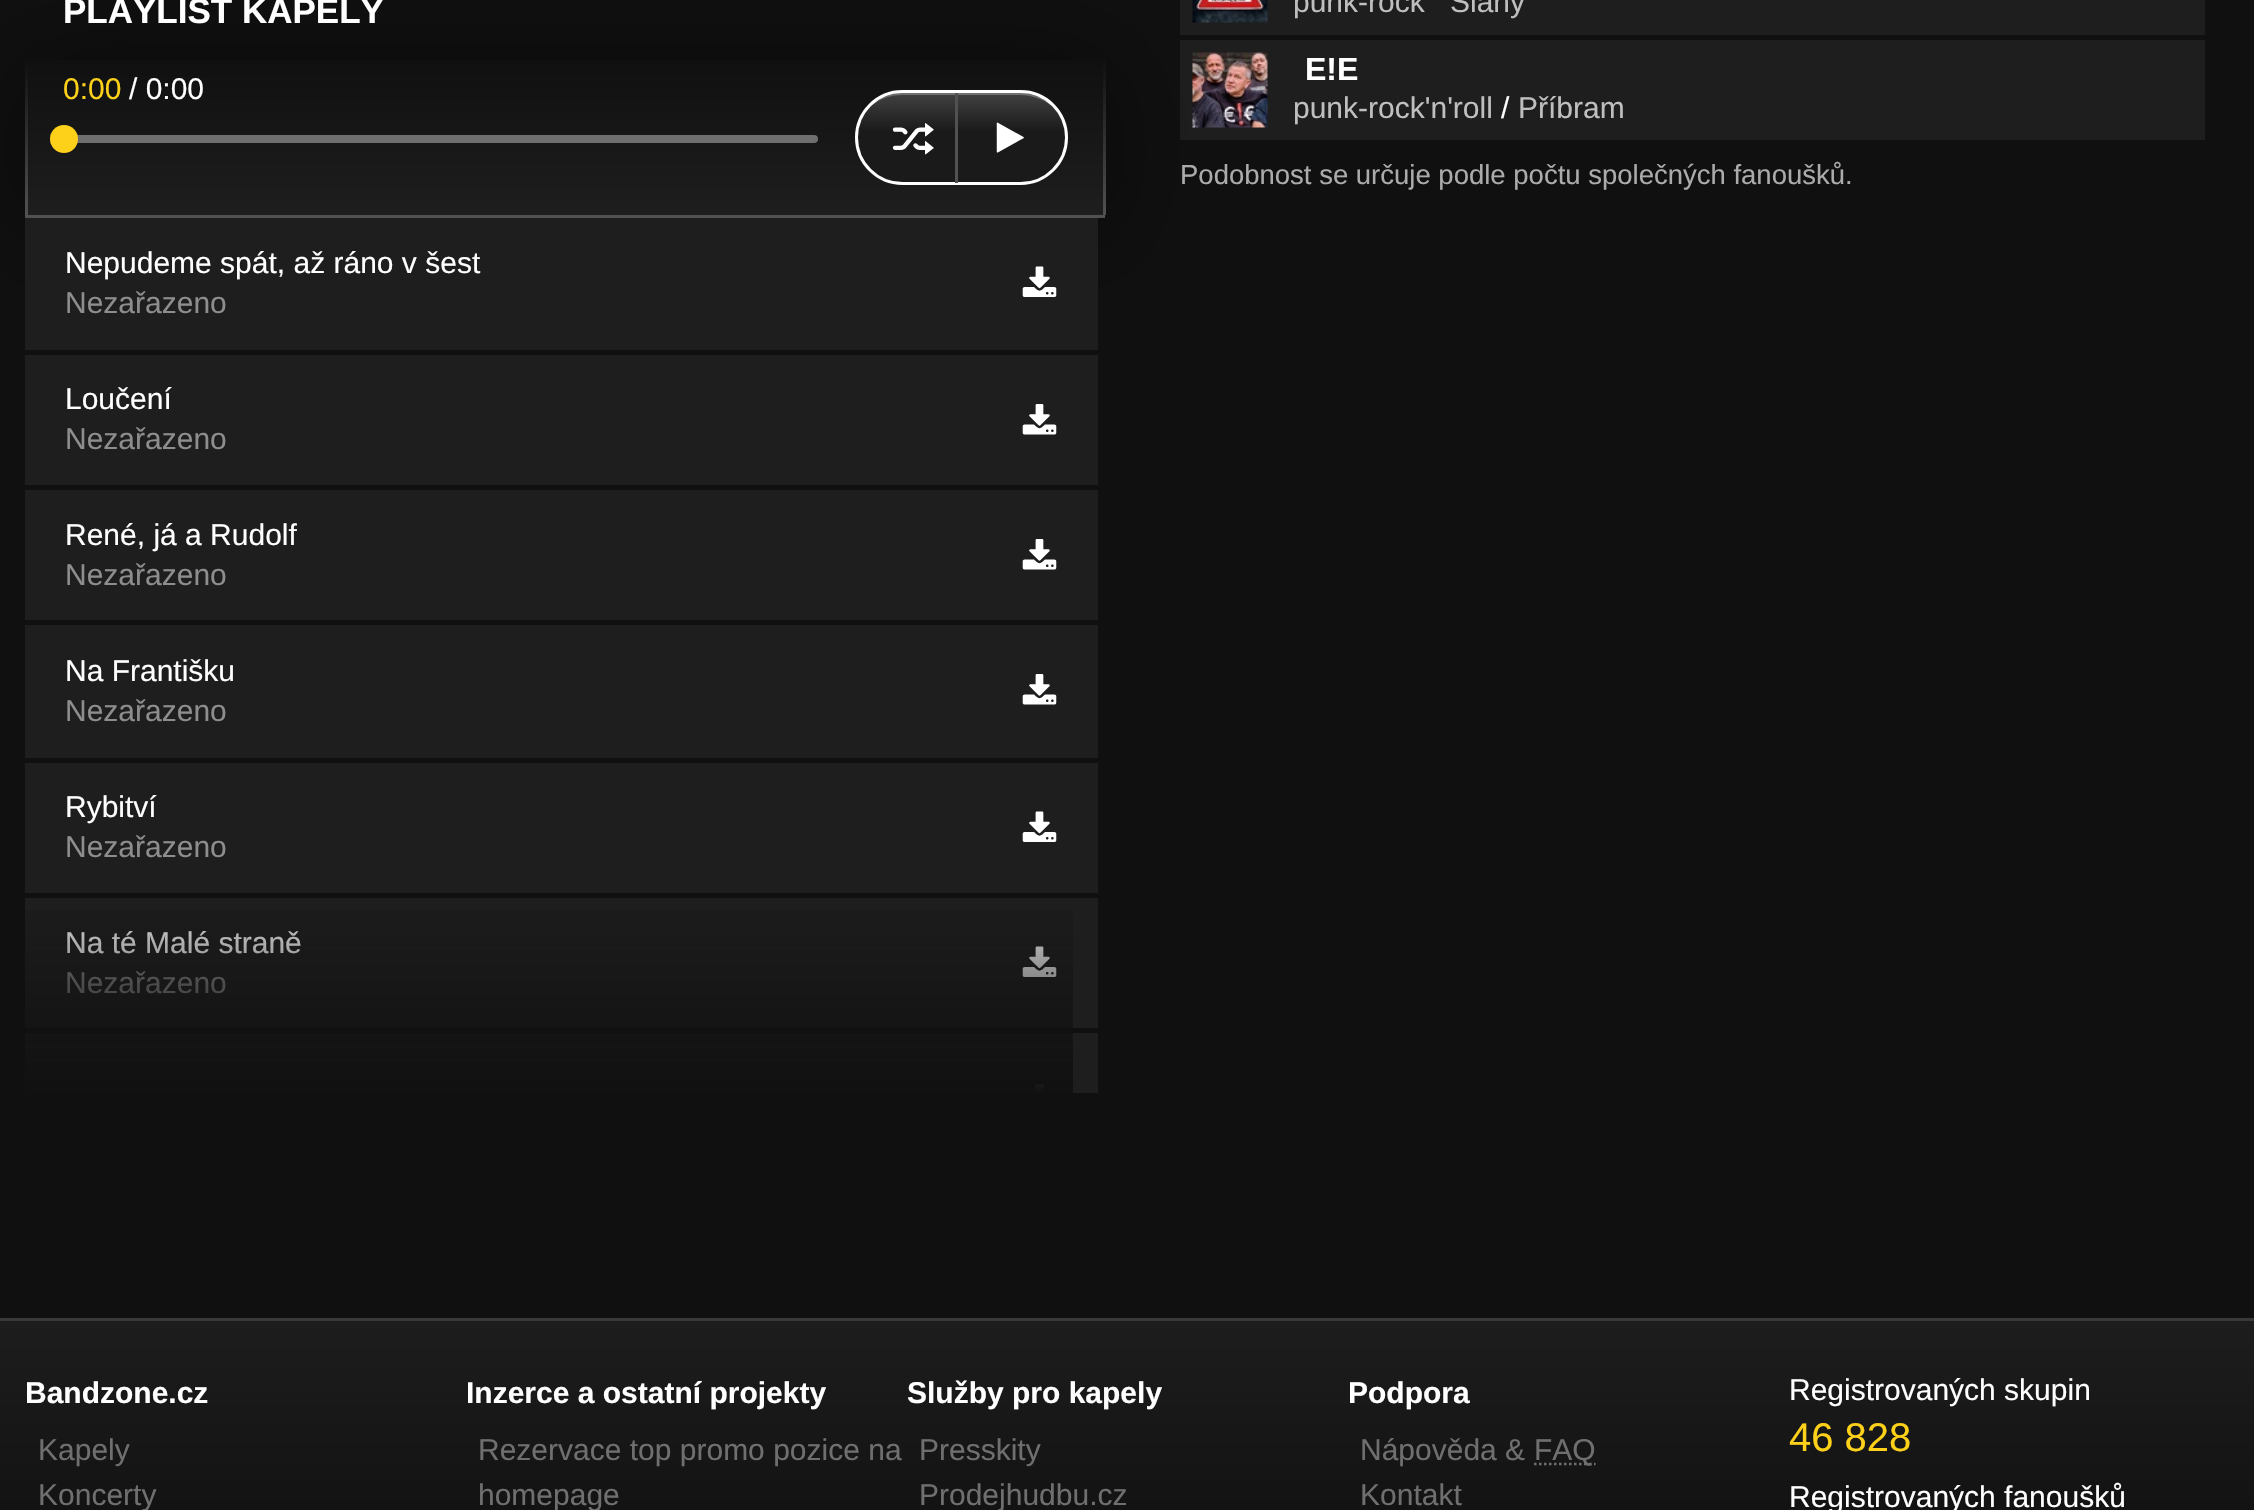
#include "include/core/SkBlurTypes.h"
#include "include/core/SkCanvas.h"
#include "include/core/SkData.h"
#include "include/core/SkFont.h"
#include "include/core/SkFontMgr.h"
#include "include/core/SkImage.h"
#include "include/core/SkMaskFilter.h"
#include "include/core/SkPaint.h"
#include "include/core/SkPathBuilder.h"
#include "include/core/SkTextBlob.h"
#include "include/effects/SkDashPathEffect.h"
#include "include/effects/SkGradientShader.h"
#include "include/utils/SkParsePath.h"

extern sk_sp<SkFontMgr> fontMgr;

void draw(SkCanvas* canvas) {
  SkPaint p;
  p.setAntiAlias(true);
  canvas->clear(SkColorSetRGB(16, 16, 16));
  p.setColor(SkColorSetRGB(30, 30, 30));
  canvas->drawRect(SkRect::MakeLTRB(1180, 0, 2205, 35), p);
  canvas->drawImageRect(SkImages::DeferredFromEncodedData(SkData::MakeFromFileName("images/5.png")), SkRect::MakeLTRB(1192, 0, 1268, 23), SkSamplingOptions());
  canvas->drawRect(SkRect::MakeLTRB(1180, 40, 2205, 140), p);
  canvas->drawImageRect(SkImages::DeferredFromEncodedData(SkData::MakeFromFileName("images/6.png")), SkRect::MakeLTRB(1192, 52, 1268, 128), SkSamplingOptions());
  p.setColor(SkColorSetARGB(128, 0, 0, 0));
  p.setMaskFilter(SkMaskFilter::MakeBlur(kNormal_SkBlurStyle, 50));
  canvas->drawRect(SkRect::MakeLTRB(25, 70, 1105, 228), p);
  p.setMaskFilter(nullptr);
  {
    const SkColor colors[] = {SkColorSetRGB(16, 16, 16), SkColorSetRGB(30, 30, 30)};
    const float stops[] = {0, 1};
    const SkPoint ends[] = {{565, 60}, {565, 215}};
    p.setShader(SkGradientShader::MakeLinear(ends, colors, stops, 2, SkTileMode::kClamp));
    p.setAlpha(255);
  }
  canvas->drawRect(SkRect::MakeLTRB(28, 60, 1103, 215), p);
  p.setShader(nullptr);
  p.setColor(SkColorSetRGB(81, 81, 81));
  canvas->drawRect(SkRect::MakeLTRB(25, 215, 1105, 218), p);
  {
    const SkColor colors[] = {SkColorSetRGB(16, 16, 16), SkColorSetRGB(81, 81, 81)};
    const float stops[] = {0, 1};
    const SkPoint ends[] = {{26, 60}, {26, 215}};
    p.setShader(SkGradientShader::MakeLinear(ends, colors, stops, 2, SkTileMode::kClamp));
    p.setAlpha(255);
  }
  canvas->drawRect(SkRect::MakeLTRB(25, 60, 28, 215), p);
  p.setShader(nullptr);
  p.setColor(SkColorSetRGB(111, 111, 111));
  canvas->drawRoundRect(SkRect::MakeLTRB(63, 135, 818, 143), 4, 4, p);
  p.setColor(SkColorSetRGB(253, 209, 25));
  canvas->drawCircle(64, 139, 14, p);
  canvas->save();
  canvas->clipPath(SkPathBuilder().moveTo(902.5f, 90).lineTo(1020.5f, 90).cubicTo(1046.5f, 90, 1068, 111.5f, 1068, 137.5f).cubicTo(1068, 163.5f, 1046.5f, 185, 1020.5f, 185).lineTo(902.5f, 185).cubicTo(876.5f, 185, 855, 163.5f, 855, 137.5f).cubicTo(855, 111.5f, 876.5f, 90, 902.5f, 90).close().detach(), true);
  {
    const SkColor colors[] = {SkColorSetRGB(66, 66, 66), SkColorSetRGB(26, 26, 26)};
    const float stops[] = {0, 0.42f};
    const SkPoint ends[] = {{961, 93}, {961, 183}};
    p.setShader(SkGradientShader::MakeLinear(ends, colors, stops, 2, SkTileMode::kClamp));
    p.setAlpha(255);
  }
  canvas->drawRect(SkRect::MakeLTRB(855, 93, 1068, 183), p);
  canvas->restore();
  p.setShader(nullptr);
  p.setColor(SkColorSetARGB(64, 255, 255, 255));
  canvas->drawPath(SkPathBuilder().moveTo(902, 95).lineTo(1020, 95).cubicTo(1032, 95, 1043, 99, 1052, 106).cubicTo(1044, 98, 1032, 93, 1020, 93).lineTo(903, 93).cubicTo(892, 93, 882, 97, 874, 104).cubicTo(882, 98, 892, 95, 902, 95).close().detach(), p);
  p.setStyle(SkPaint::kStroke_Style);
  p.setStrokeWidth(3);
  p.setColor(SK_ColorWHITE);
  canvas->drawRoundRect(SkRect::MakeLTRB(856.5f, 91.5f, 1066.5f, 183.5f), 46, 46, p);
  p.setStyle(SkPaint::kFill_Style);
  p.setColor(SkColorSetRGB(81, 81, 81));
  canvas->drawRect(SkRect::MakeLTRB(955, 93, 958, 183), p);
  canvas->drawImageRect(SkImages::DeferredFromEncodedData(SkData::MakeFromFileName("images/1.png")), SkRect::MakeLTRB(892, 123, 934, 155), SkSamplingOptions());
  canvas->drawImageRect(SkImages::DeferredFromEncodedData(SkData::MakeFromFileName("images/2.png")), SkRect::MakeLTRB(996, 122, 1024, 153), SkSamplingOptions());
  {
    const SkColor colors[] = {SkColorSetRGB(16, 16, 16), SkColorSetRGB(81, 81, 81)};
    const float stops[] = {0, 1};
    const SkPoint ends[] = {{1104, 60}, {1104, 215}};
    p.setShader(SkGradientShader::MakeLinear(ends, colors, stops, 2, SkTileMode::kClamp));
    p.setAlpha(255);
  }
  canvas->drawRect(SkRect::MakeLTRB(1103, 60, 1106, 215), p);
  p.setShader(nullptr);
  p.setColor(SkColorSetRGB(30, 30, 30));
  canvas->drawRect(SkRect::MakeLTRB(25, 218, 1098, 350), p);
  canvas->drawImageRect(SkImages::DeferredFromEncodedData(SkData::MakeFromFileName("images/3.png")), SkRect::MakeLTRB(1022, 266, 1057, 297), SkSamplingOptions());
  canvas->drawRect(SkRect::MakeLTRB(25, 355, 1098, 485), p);
  canvas->drawImageRect(SkImages::DeferredFromEncodedData(SkData::MakeFromFileName("images/4.png")), SkRect::MakeLTRB(1022, 404, 1057, 435), SkSamplingOptions());
  canvas->drawRect(SkRect::MakeLTRB(25, 490, 1098, 620), p);
  canvas->drawImageRect(SkImages::DeferredFromEncodedData(SkData::MakeFromFileName("images/4.png")), SkRect::MakeLTRB(1022, 539, 1057, 570), SkSamplingOptions());
  canvas->drawRect(SkRect::MakeLTRB(25, 625, 1098, 758), p);
  canvas->drawImageRect(SkImages::DeferredFromEncodedData(SkData::MakeFromFileName("images/4.png")), SkRect::MakeLTRB(1022, 674, 1057, 705), SkSamplingOptions());
  canvas->drawRect(SkRect::MakeLTRB(25, 763, 1098, 893), p);
  canvas->drawImageRect(SkImages::DeferredFromEncodedData(SkData::MakeFromFileName("images/3.png")), SkRect::MakeLTRB(1022, 811, 1057, 842), SkSamplingOptions());
  canvas->drawRect(SkRect::MakeLTRB(25, 898, 1098, 1028), p);
  canvas->drawImageRect(SkImages::DeferredFromEncodedData(SkData::MakeFromFileName("images/3.png")), SkRect::MakeLTRB(1022, 946, 1057, 977), SkSamplingOptions());
  canvas->drawRect(SkRect::MakeLTRB(25, 1033, 1098, 1093), p);
  p.setColor(SK_ColorWHITE);
  canvas->drawRect(SkRect::MakeLTRB(1035, 1084, 1044, 1092), p);
  {
    const SkColor colors[] = {SkColorSetRGB(29, 29, 29), SkColorSetRGB(4, 4, 4)};
    const float stops[] = {0, 1};
    const SkPoint ends[] = {{1128, 1320}, {1128, 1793}};
    p.setShader(SkGradientShader::MakeLinear(ends, colors, stops, 2, SkTileMode::kClamp));
    p.setAlpha(255);
  }
  canvas->drawRect(SkRect::MakeLTRB(0, 1321, 2254, 1510), p);
  p.setShader(nullptr);
  p.setColor(SkColorSetRGB(57, 57, 57));
  canvas->drawRect(SkRect::MakeLTRB(0, 1318, 2254, 1321), p);
  p.setStyle(SkPaint::kStroke_Style);
  p.setStrokeWidth(2.5f);
  p.setColor(SkColorSetRGB(111, 111, 111));
  p.setPathEffect(SkDashPathEffect::Make({{2.5f, 2.5f}}, 0));
  canvas->drawPath(SkPathBuilder().moveTo(1534, 1464).lineTo(1595.5f, 1464).detach(), p);
  p.setPathEffect(nullptr);
  SkFont font1(fontMgr->matchFamilyStyle("Liberation Sans", SkFontStyle::Bold()), 35);
  font1.setSubpixel(true);
  p.setStyle(SkPaint::kFill_Style);
  p.setColor(SK_ColorWHITE);
  canvas->drawString("PLAYLIST KAPELY", 63, 23, font1, p);
  SkFont font2(fontMgr->matchFamilyStyle("Liberation Sans", SkFontStyle::Normal()), 30);
  font2.setSubpixel(true);
  p.setColor(SkColorSetRGB(253, 209, 25));
  canvas->drawString("0:00", 63, 99, font2, p);
  p.setColor(SK_ColorWHITE);
  canvas->drawString("/ 0:00", 129, 99, font2, p);
  canvas->drawString("Nepudeme spát, až ráno v šest", 65, 273, font2, p);
  p.setColor(SkColorSetRGB(141, 141, 141));
  canvas->drawString("Nezařazeno", 65, 313, font2, p);
  p.setColor(SK_ColorWHITE);
  canvas->drawString("Loučení", 65, 409, font2, p);
  p.setColor(SkColorSetRGB(141, 141, 141));
  canvas->drawString("Nezařazeno", 65, 449, font2, p);
  p.setColor(SK_ColorWHITE);
  canvas->drawString("René, já a Rudolf", 65, 545, font2, p);
  p.setColor(SkColorSetRGB(141, 141, 141));
  canvas->drawString("Nezařazeno", 65, 585, font2, p);
  p.setColor(SK_ColorWHITE);
  canvas->drawString("Na Františku", 65, 681, font2, p);
  p.setColor(SkColorSetRGB(141, 141, 141));
  canvas->drawString("Nezařazeno", 65, 721, font2, p);
  p.setColor(SK_ColorWHITE);
  canvas->drawString("Rybitví", 65, 817, font2, p);
  p.setColor(SkColorSetRGB(141, 141, 141));
  canvas->drawString("Nezařazeno", 65, 857, font2, p);
  p.setColor(SK_ColorWHITE);
  canvas->drawString("Na té Malé straně", 65, 953, font2, p);
  p.setColor(SkColorSetRGB(141, 141, 141));
  canvas->drawString("Nezařazeno", 65, 993, font2, p);
  {
    const SkColor colors[] = {SkColorSetARGB(0, 16, 16, 16), SkColorSetRGB(16, 16, 16)};
    const float stops[] = {0, 1};
    const SkPoint ends[] = {{549, 868}, {549, 1093}};
    p.setShader(SkGradientShader::MakeLinear(ends, colors, stops, 2, SkTileMode::kClamp));
    p.setAlpha(255);
  }
  canvas->drawRect(SkRect::MakeLTRB(25, 910, 1073, 1093), p);
  p.setShader(nullptr);
  p.setColor(SkColorSetRGB(191, 191, 191));
  canvas->drawString("punk-rock", 1293, 12, font2, p);
  canvas->drawString("Slaný", 1450, 12, font2, p);
  SkFont font3(fontMgr->matchFamilyStyle("Liberation Sans", SkFontStyle::Bold()), 32);
  font3.setSubpixel(true);
  p.setColor(SK_ColorWHITE);
  canvas->drawString("E!E", 1305, 80, font3, p);
  p.setColor(SkColorSetRGB(191, 191, 191));
  canvas->drawString("punk-rock'n'roll", 1293, 118, font2, p);
  p.setColor(SK_ColorWHITE);
  canvas->drawString("/", 1501, 118, font2, p);
  p.setColor(SkColorSetRGB(191, 191, 191));
  canvas->drawString("Příbram", 1518, 118, font2, p);
  SkFont font4(fontMgr->matchFamilyStyle("Liberation Sans", SkFontStyle::Normal()), 27.5f);
  font4.setSubpixel(true);
  p.setColor(SkColorSetRGB(171, 171, 171));
  canvas->drawString("Podobnost se určuje podle počtu společných fanoušků.", 1180, 184, font4, p);
  SkFont font5(fontMgr->matchFamilyStyle("Liberation Sans", SkFontStyle::Bold()), 30);
  font5.setSubpixel(true);
  p.setColor(SK_ColorWHITE);
  canvas->drawString("Bandzone.cz", 25, 1403, font5, p);
  p.setColor(SkColorSetRGB(111, 111, 111));
  canvas->drawString("Kapely", 38, 1460, font2, p);
  canvas->drawString("Koncerty", 38, 1505, font2, p);
  p.setColor(SK_ColorWHITE);
  canvas->drawString("Inzerce a ostatní projekty", 466, 1403, font5, p);
  p.setColor(SkColorSetRGB(111, 111, 111));
  canvas->drawString("Rezervace top promo pozice na", 478, 1460, font2, p);
  canvas->drawString("homepage", 478, 1505, font2, p);
  p.setColor(SK_ColorWHITE);
  canvas->drawString("Služby pro kapely", 907, 1403, font5, p);
  p.setColor(SkColorSetRGB(111, 111, 111));
  canvas->drawString("Presskity", 919, 1460, font2, p);
  canvas->drawString("Prodejhudbu.cz", 919, 1505, font2, p);
  p.setColor(SK_ColorWHITE);
  canvas->drawString("Podpora", 1348, 1403, font5, p);
  p.setColor(SkColorSetRGB(111, 111, 111));
  canvas->drawString("Nápověda &", 1360, 1460, font2, p);
  canvas->drawString("FAQ", 1534, 1460, font2, p);
  canvas->drawString("Kontakt", 1360, 1505, font2, p);
  p.setColor(SK_ColorWHITE);
  canvas->drawString("Registrovaných skupin", 1789, 1400, font2, p);
  SkFont font6(fontMgr->matchFamilyStyle("Liberation Sans", SkFontStyle::Normal()), 40);
  font6.setSubpixel(true);
  p.setColor(SkColorSetRGB(253, 209, 25));
  canvas->drawString("46 828", 1789, 1451, font6, p);
  p.setColor(SK_ColorWHITE);
  canvas->drawString("Registrovaných fanoušků", 1789, 1507, font2, p);
}
